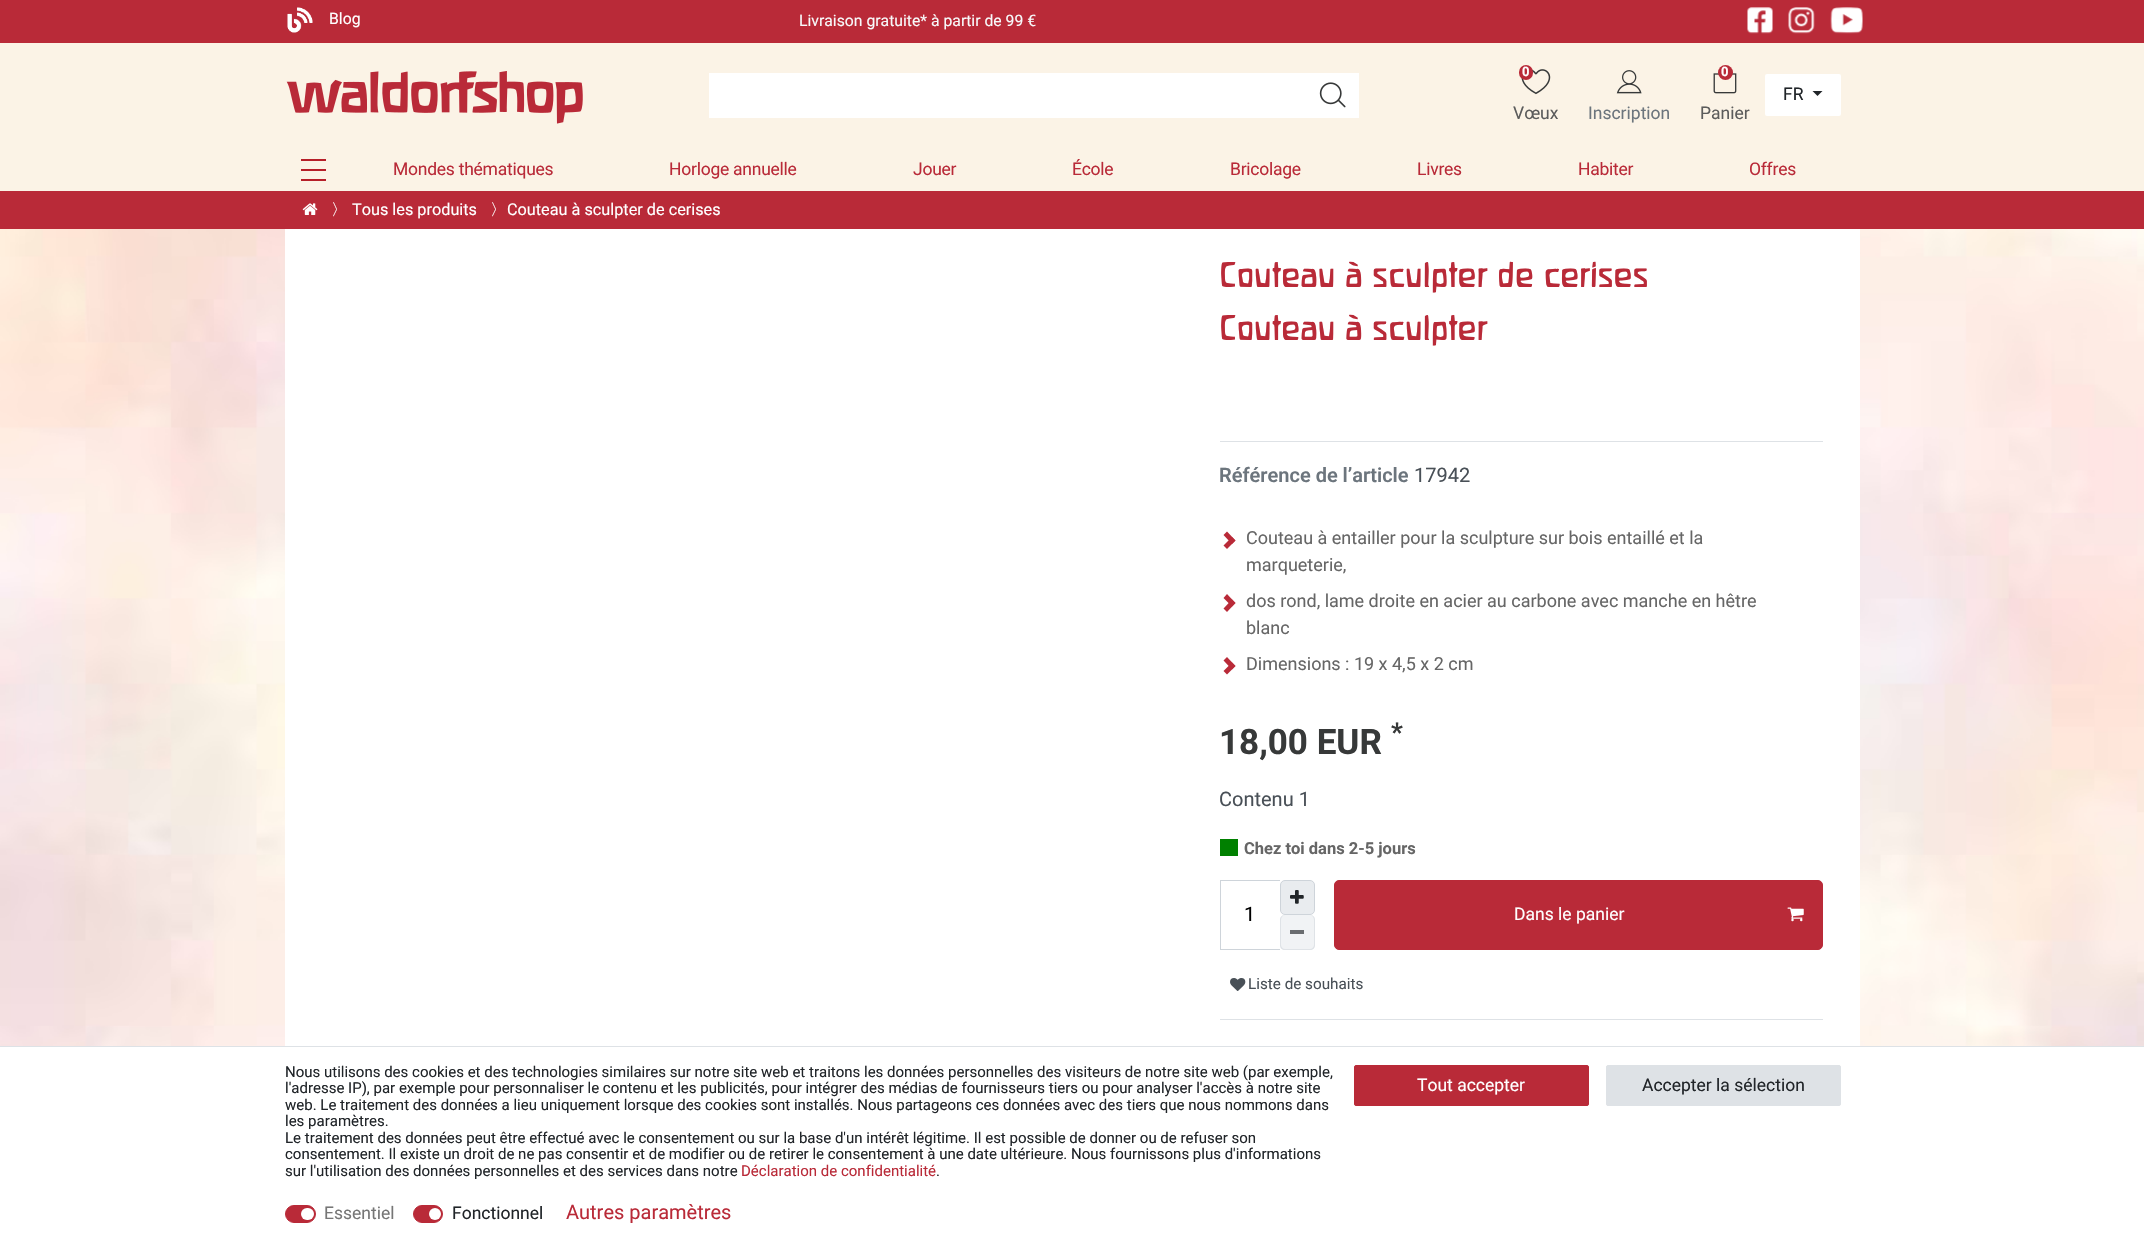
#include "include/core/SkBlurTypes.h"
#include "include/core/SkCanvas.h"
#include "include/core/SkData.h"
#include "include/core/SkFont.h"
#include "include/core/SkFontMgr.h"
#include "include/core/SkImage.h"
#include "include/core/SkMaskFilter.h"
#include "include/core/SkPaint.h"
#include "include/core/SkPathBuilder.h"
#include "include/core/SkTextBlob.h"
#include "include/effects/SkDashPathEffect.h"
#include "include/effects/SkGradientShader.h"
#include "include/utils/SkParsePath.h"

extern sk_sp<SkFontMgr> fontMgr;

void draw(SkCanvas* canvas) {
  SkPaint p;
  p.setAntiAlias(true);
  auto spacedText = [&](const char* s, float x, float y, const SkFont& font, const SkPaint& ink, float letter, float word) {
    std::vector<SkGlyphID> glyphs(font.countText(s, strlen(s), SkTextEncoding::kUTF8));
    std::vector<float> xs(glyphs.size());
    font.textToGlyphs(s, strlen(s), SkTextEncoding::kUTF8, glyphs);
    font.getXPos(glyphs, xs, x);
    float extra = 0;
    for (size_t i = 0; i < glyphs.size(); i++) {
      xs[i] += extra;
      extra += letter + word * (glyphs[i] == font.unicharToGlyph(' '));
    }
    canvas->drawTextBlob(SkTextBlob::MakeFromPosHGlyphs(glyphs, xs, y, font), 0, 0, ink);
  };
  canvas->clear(SK_ColorWHITE);
  p.setColor(SkColorSetRGB(185, 42, 56));
  canvas->drawRect(SkRect::MakeLTRB(0, 0, 2144, 43), p);
  canvas->drawImageRect(SkImages::DeferredFromEncodedData(SkData::MakeFromFileName("images/1.png")), SkRect::MakeLTRB(287, 7, 313, 33), SkSamplingOptions());
  canvas->drawImageRect(SkImages::DeferredFromEncodedData(SkData::MakeFromFileName("images/2.png")), SkRect::MakeLTRB(1747, 7, 1773, 34), SkSamplingOptions());
  canvas->drawImageRect(SkImages::DeferredFromEncodedData(SkData::MakeFromFileName("images/3.png")), SkRect::MakeLTRB(1788, 7, 1815, 34), SkSamplingOptions());
  canvas->drawImageRect(SkImages::DeferredFromEncodedData(SkData::MakeFromFileName("images/4.png")), SkRect::MakeLTRB(1830, 7, 1863, 34), SkSamplingOptions());
  p.setColor(SkColorSetRGB(251, 243, 230));
  canvas->drawRect(SkRect::MakeLTRB(0, 43, 2144, 191), p);
  canvas->drawImageRect(SkImages::DeferredFromEncodedData(SkData::MakeFromFileName("images/5.png")), SkRect::MakeLTRB(286, 71, 583, 124), SkSamplingOptions());
  p.setColor(SK_ColorWHITE);
  canvas->drawRect(SkRect::MakeLTRB(709, 73, 1359, 118), p);
  canvas->drawImageRect(SkImages::DeferredFromEncodedData(SkData::MakeFromFileName("images/6.png")), SkRect::MakeLTRB(1319, 82, 1346, 108), SkSamplingOptions());
  canvas->drawImageRect(SkImages::DeferredFromEncodedData(SkData::MakeFromFileName("images/7.png")), SkRect::MakeLTRB(1521, 69, 1551, 95), SkSamplingOptions());
  p.setColor(SkColorSetRGB(185, 42, 56));
  canvas->drawRoundRect(SkRect::MakeLTRB(1519, 65, 1533, 80), 7, 7, p);
  canvas->drawImageRect(SkImages::DeferredFromEncodedData(SkData::MakeFromFileName("images/8.png")), SkRect::MakeLTRB(1713, 73, 1737, 94), SkSamplingOptions());
  canvas->drawCircle(1725.5f, 72.5f, 7.5f, p);
  p.setColor(SK_ColorWHITE);
  canvas->drawRoundRect(SkRect::MakeLTRB(1765, 74, 1841, 116), 2, 2, p);
  p.setColor(SkColorSetRGB(33, 37, 41));
  canvas->drawPath(SkPathBuilder().moveTo(1812.5f, 91).lineTo(1822.5f, 91).lineTo(1817.5f, 96).close().detach(), p);
  canvas->drawImageRect(SkImages::DeferredFromEncodedData(SkData::MakeFromFileName("images/9.png")), SkRect::MakeLTRB(1616, 70, 1642, 94), SkSamplingOptions());
  p.setColor(SkColorSetRGB(182, 31, 41));
  canvas->drawRect(SkRect::MakeLTRB(301, 159, 326, 161), p);
  canvas->drawRect(SkRect::MakeLTRB(301, 169, 326, 171), p);
  canvas->drawRect(SkRect::MakeLTRB(301, 179, 326, 181), p);
  p.setColor(SkColorSetRGB(185, 42, 56));
  canvas->drawRect(SkRect::MakeLTRB(0, 191, 2144, 229), p);
  canvas->drawImageRect(SkImages::DeferredFromEncodedData(SkData::MakeFromFileName("images/10.png")), SkRect::MakeLTRB(302, 203, 318, 215), SkSamplingOptions());
  canvas->drawImageRect(SkImages::DeferredFromEncodedData(SkData::MakeFromFileName("images/11.png")), SkRect::MakeLTRB(0, 229, 2144, 1046), SkSamplingOptions());
  p.setColor(SK_ColorWHITE);
  canvas->drawRect(SkRect::MakeLTRB(285, 229, 1860, 1046), p);
  p.setColor(SkColorSetRGB(222, 226, 230));
  canvas->drawRect(SkRect::MakeLTRB(1220, 441, 1823, 442), p);
  p.setColor(SkColorSetRGB(185, 42, 56));
  canvas->drawPath(SkPathBuilder().moveTo(1227, 531.5f).lineTo(1235.5f, 540.5f).lineTo(1232, 544).lineTo(1223.5f, 535).close().detach(), p);
  canvas->drawPath(SkPathBuilder().moveTo(1232, 537).lineTo(1235.5f, 540.5f).lineTo(1227, 549).lineTo(1223.5f, 545.5f).close().detach(), p);
  canvas->drawPath(SkPathBuilder().moveTo(1227, 594).lineTo(1235.5f, 603).lineTo(1232, 606.5f).lineTo(1223.5f, 598).close().detach(), p);
  canvas->drawPath(SkPathBuilder().moveTo(1232, 599.5f).lineTo(1235.5f, 603).lineTo(1227, 612).lineTo(1223.5f, 608.5f).close().detach(), p);
  canvas->drawPath(SkPathBuilder().moveTo(1227, 657).lineTo(1235.5f, 666).lineTo(1232, 669.5f).lineTo(1223.5f, 660.5f).close().detach(), p);
  canvas->drawPath(SkPathBuilder().moveTo(1232, 662.5f).lineTo(1235.5f, 666).lineTo(1227, 674.5f).lineTo(1223.5f, 671).close().detach(), p);
  p.setColor(SkColorSetRGB(0, 128, 0));
  canvas->drawRect(SkRect::MakeLTRB(1220, 839, 1238, 856), p);
  p.setColor(SkColorSetRGB(206, 212, 218));
  canvas->drawRect(SkRect::MakeLTRB(1220, 880, 1280, 881), p);
  canvas->drawRect(SkRect::MakeLTRB(1220, 949, 1280, 950), p);
  canvas->drawRect(SkRect::MakeLTRB(1220, 880, 1221, 950), p);
  p.setColor(SkColorSetRGB(233, 236, 239));
  canvas->drawRoundRect(SkRect::MakeLTRB(1280.5f, 880.5f, 1314.5f, 914.5f), 4.5f, 4.5f, p);
  p.setStyle(SkPaint::kStroke_Style);
  p.setStrokeWidth(1);
  p.setColor(SkColorSetRGB(206, 212, 218));
  canvas->drawRoundRect(SkRect::MakeLTRB(1280.5f, 880.5f, 1314.5f, 914.5f), 4.5f, 4.5f, p);
  canvas->drawImageRect(SkImages::DeferredFromEncodedData(SkData::MakeFromFileName("images/12.png")), SkRect::MakeLTRB(1290, 890, 1304, 904), SkSamplingOptions());
  p.setStyle(SkPaint::kFill_Style);
  p.setColor(SkColorSetRGB(241, 243, 245));
  canvas->drawRoundRect(SkRect::MakeLTRB(1280, 915, 1315, 950), 5, 5, p);
  p.setColor(SkColorSetRGB(223, 227, 231));
  canvas->drawPath(SkPathBuilder(SkPathFillType::kEvenOdd).moveTo(1285, 915).lineTo(1310, 915).cubicTo(1313, 915, 1315, 917, 1315, 920).lineTo(1315, 945).cubicTo(1315, 948, 1313, 950, 1310, 950).lineTo(1285, 950).cubicTo(1282, 950, 1280, 948, 1280, 945).lineTo(1280, 920).cubicTo(1280, 917, 1282, 915, 1285, 915).close().moveTo(1285, 915).lineTo(1310, 915).cubicTo(1312, 915, 1314, 917, 1314, 920).lineTo(1314, 945).cubicTo(1314, 947, 1312, 949, 1310, 949).lineTo(1285, 949).cubicTo(1283, 949, 1281, 947, 1281, 945).lineTo(1281, 920).cubicTo(1281, 917, 1283, 915, 1285, 915).close().detach(), p);
  p.setColor(SkColorSetRGB(106, 109, 112));
  canvas->drawRect(SkRect::MakeLTRB(1290, 930, 1304, 934), p);
  p.setColor(SkColorSetRGB(185, 42, 56));
  canvas->drawRoundRect(SkRect::MakeLTRB(1334.5f, 880.5f, 1822.5f, 949.5f), 4.5f, 4.5f, p);
  p.setStyle(SkPaint::kStroke_Style);
  canvas->drawRoundRect(SkRect::MakeLTRB(1334.5f, 880.5f, 1822.5f, 949.5f), 4.5f, 4.5f, p);
  canvas->drawImageRect(SkImages::DeferredFromEncodedData(SkData::MakeFromFileName("images/13.png")), SkRect::MakeLTRB(1787, 907, 1804, 922), SkSamplingOptions());
  canvas->drawImageRect(SkImages::DeferredFromEncodedData(SkData::MakeFromFileName("images/14.png")), SkRect::MakeLTRB(1230, 978, 1246, 991), SkSamplingOptions());
  p.setStyle(SkPaint::kFill_Style);
  p.setColor(SkColorSetRGB(222, 226, 230));
  canvas->drawRect(SkRect::MakeLTRB(1220, 1019, 1823, 1020), p);
  canvas->drawRect(SkRect::MakeLTRB(0, 1046, 2144, 1047), p);
  p.setColor(SkColorSetRGB(185, 42, 56));
  canvas->drawRoundRect(SkRect::MakeLTRB(285.5f, 1205.5f, 315.5f, 1222.5f), 8.5f, 8.5f, p);
  p.setStyle(SkPaint::kStroke_Style);
  canvas->drawRoundRect(SkRect::MakeLTRB(285.5f, 1205.5f, 315.5f, 1222.5f), 8.5f, 8.5f, p);
  p.setStyle(SkPaint::kFill_Style);
  p.setColor(SK_ColorWHITE);
  canvas->drawRoundRect(SkRect::MakeLTRB(301, 1208, 314, 1220), 6, 6, p);
  p.setColor(SkColorSetRGB(185, 42, 56));
  canvas->drawRoundRect(SkRect::MakeLTRB(413.5f, 1205.5f, 442.5f, 1222.5f), 8.5f, 8.5f, p);
  p.setStyle(SkPaint::kStroke_Style);
  canvas->drawRoundRect(SkRect::MakeLTRB(413.5f, 1205.5f, 442.5f, 1222.5f), 8.5f, 8.5f, p);
  p.setStyle(SkPaint::kFill_Style);
  p.setColor(SK_ColorWHITE);
  canvas->drawCircle(435, 1214, 6, p);
  p.setColor(SkColorSetRGB(185, 42, 56));
  canvas->drawRoundRect(SkRect::MakeLTRB(1354.5f, 1065.5f, 1588.5f, 1105.5f), 1.5f, 1.5f, p);
  p.setStyle(SkPaint::kStroke_Style);
  canvas->drawRoundRect(SkRect::MakeLTRB(1354.5f, 1065.5f, 1588.5f, 1105.5f), 1.5f, 1.5f, p);
  p.setStyle(SkPaint::kFill_Style);
  p.setColor(SkColorSetRGB(222, 226, 230));
  canvas->drawRoundRect(SkRect::MakeLTRB(1606.5f, 1065.5f, 1840.5f, 1105.5f), 1.5f, 1.5f, p);
  p.setStyle(SkPaint::kStroke_Style);
  canvas->drawRoundRect(SkRect::MakeLTRB(1606.5f, 1065.5f, 1840.5f, 1105.5f), 1.5f, 1.5f, p);
  SkFont font1(fontMgr->matchFamilyStyle("Roboto", SkFontStyle::Normal()), 15.75f);
  font1.setSubpixel(true);
  p.setStyle(SkPaint::kFill_Style);
  p.setColor(SK_ColorWHITE);
  canvas->drawString("Blog", 329, 24, font1, p);
  p.setColor(SkColorSetRGB(248, 249, 250));
  canvas->drawString("Livraison gratuite* à partir de 99 €", 799, 26, font1, p);
  SkFont font2(fontMgr->matchFamilyStyle("Roboto", SkFontStyle::Bold()), 13);
  font2.setSubpixel(true);
  p.setColor(SK_ColorWHITE);
  canvas->drawString("0", 1522, 76, font2, p);
  SkFont font3(fontMgr->matchFamilyStyle("Roboto", SkFontStyle::Normal()), 17.5f);
  font3.setSubpixel(true);
  p.setColor(SkColorSetRGB(92, 92, 92));
  canvas->drawString("Vœux", 1513, 119, font3, p);
  p.setColor(SK_ColorWHITE);
  canvas->drawString("0", 1721, 76, font2, p);
  p.setColor(SkColorSetRGB(92, 92, 92));
  canvas->drawString("Panier", 1700, 119, font3, p);
  p.setColor(SkColorSetRGB(33, 37, 41));
  canvas->drawString("FR", 1783, 100, font3, p);
  p.setColor(SkColorSetRGB(108, 117, 125));
  canvas->drawString("Inscription", 1588, 119, font3, p);
  p.setColor(SkColorSetRGB(185, 42, 56));
  spacedText("Mondes thématiques", 393, 175, font3, p, -0.25f, 0);
  spacedText("Horloge annuelle", 669, 175, font3, p, -0.25f, 0);
  spacedText("Jouer", 913, 175, font3, p, -0.25f, 0);
  spacedText("École", 1072, 175, font3, p, -0.25f, 0);
  spacedText("Bricolage", 1230, 175, font3, p, -0.25f, 0);
  spacedText("Livres", 1417, 175, font3, p, -0.25f, 0);
  spacedText("Habiter", 1578, 175, font3, p, -0.25f, 0);
  spacedText("Offres", 1749, 175, font3, p, -0.25f, 0);
  SkFont font4(fontMgr->matchFamilyStyle("WenQuanYi Zen Hei", SkFontStyle(500, SkFontStyle::kNormal_Width, SkFontStyle::kUpright_Slant)), 16.25f);
  font4.setSubpixel(true);
  p.setColor(SK_ColorWHITE);
  canvas->drawString("〉", 331, 215, font4, p);
  SkFont font5(fontMgr->matchFamilyStyle("Roboto", SkFontStyle::Normal()), 16.25f);
  font5.setSubpixel(true);
  canvas->drawString("Tous les produits", 352, 215, font5, p);
  canvas->drawString("〉", 490, 215, font4, p);
  canvas->drawString("Couteau à sculpter de cerises", 507, 215, font5, p);
  SkFont font6(fontMgr->matchFamilyStyle("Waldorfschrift", SkFontStyle::Normal()), 31.5f);
  font6.setSubpixel(true);
  p.setColor(SkColorSetRGB(185, 42, 56));
  canvas->drawString("Couteau à sculpter de cerises", 1219, 287, font6, p);
  canvas->drawString("Couteau à sculpter", 1219, 340, font6, p);
  SkFont font7(fontMgr->matchFamilyStyle("Roboto", SkFontStyle(600, SkFontStyle::kNormal_Width, SkFontStyle::kUpright_Slant)), 20);
  font7.setSubpixel(true);
  p.setColor(SkColorSetRGB(108, 117, 125));
  canvas->drawString("Référence de l’article", 1219, 482, font7, p);
  SkFont font8(fontMgr->matchFamilyStyle("Roboto", SkFontStyle::Normal()), 20);
  font8.setSubpixel(true);
  p.setColor(SkColorSetRGB(73, 80, 87));
  canvas->drawString("17942", 1414, 482, font8, p);
  SkFont font9(fontMgr->matchFamilyStyle("Roboto", SkFontStyle::Normal()), 18);
  font9.setSubpixel(true);
  p.setColor(SkColorSetRGB(102, 102, 102));
  canvas->drawString("Couteau à entailler pour la sculpture sur bois entaillé et la", 1246, 544, font9, p);
  canvas->drawString("marqueterie,", 1246, 571, font9, p);
  canvas->drawString("dos rond, lame droite en acier au carbone avec manche en hêtre", 1246, 607, font9, p);
  canvas->drawString("blanc", 1246, 634, font9, p);
  canvas->drawString("Dimensions : 19 x 4,5 x 2 cm", 1246, 670, font9, p);
  SkFont font10(fontMgr->matchFamilyStyle("Roboto", SkFontStyle::Bold()), 35);
  font10.setSubpixel(true);
  p.setColor(SkColorSetRGB(55, 57, 57));
  canvas->drawString("18,00 EUR", 1219, 754, font10, p);
  SkFont font11(fontMgr->matchFamilyStyle("Roboto", SkFontStyle::Bold()), 26);
  font11.setSubpixel(true);
  canvas->drawString("*", 1391, 741, font11, p);
  p.setColor(SkColorSetRGB(73, 80, 87));
  canvas->drawString("Contenu 1", 1219, 806, font8, p);
  SkFont font12(fontMgr->matchFamilyStyle("Roboto", SkFontStyle::Bold()), 16.5f);
  font12.setSubpixel(true);
  p.setColor(SkColorSetRGB(102, 102, 102));
  canvas->drawString("Chez toi dans 2-5 jours", 1244, 854, font12, p);
  p.setColor(SK_ColorBLACK);
  canvas->drawString("1", 1244, 921, font8, p);
  p.setColor(SK_ColorWHITE);
  canvas->drawString("Dans le panier", 1514, 920, font3, p);
  SkFont font13(fontMgr->matchFamilyStyle("Roboto", SkFontStyle::Normal()), 15.25f);
  font13.setSubpixel(true);
  p.setColor(SkColorSetRGB(73, 80, 87));
  canvas->drawString("Liste de souhaits", 1248, 989, font13, p);
  SkFont font14(fontMgr->matchFamilyStyle("Roboto", SkFontStyle::Normal()), 15);
  font14.setSubpixel(true);
  p.setColor(SkColorSetRGB(33, 37, 41));
  canvas->drawString("Nous utilisons des cookies et des technologies similaires sur notre site web et traitons les données personnelles des visiteurs de notre site web (par exemple,", 285, 1077, font14, p);
  canvas->drawString("l'adresse IP), par exemple pour personnaliser le contenu et les publicités, pour intégrer des médias de fournisseurs tiers ou pour analyser l'accès à notre site", 285, 1093, font14, p);
  canvas->drawString("web. Le traitement des données a lieu uniquement lorsque des cookies sont installés. Nous partageons ces données avec des tiers que nous nommons dans", 285, 1110, font14, p);
  canvas->drawString("les paramètres.", 285, 1126, font14, p);
  canvas->drawString("Le traitement des données peut être effectué avec le consentement ou sur la base d'un intérêt légitime. Il est possible de donner ou de refuser son", 285, 1143, font14, p);
  canvas->drawString("consentement. Il existe un droit de ne pas consentir et de modifier ou de retirer le consentement à une date ultérieure. Nous fournissons plus d'informations", 285, 1159, font14, p);
  canvas->drawString("sur l'utilisation des données personnelles et des services dans notre", 285, 1176, font14, p);
  p.setColor(SkColorSetRGB(185, 42, 56));
  canvas->drawString("Déclaration de confidentialité", 741, 1176, font14, p);
  p.setColor(SkColorSetRGB(33, 37, 41));
  canvas->drawString(".", 936, 1176, font14, p);
  p.setColor(SkColorSetRGB(118, 118, 118));
  canvas->drawString("Essentiel", 324, 1219, font3, p);
  p.setColor(SkColorSetRGB(33, 37, 41));
  canvas->drawString("Fonctionnel", 452, 1219, font3, p);
  p.setColor(SkColorSetRGB(185, 42, 56));
  canvas->drawString("Autres paramètres", 566, 1219, font8, p);
  p.setColor(SK_ColorWHITE);
  canvas->drawString("Tout accepter", 1417, 1091, font3, p);
  p.setColor(SkColorSetRGB(33, 37, 41));
  canvas->drawString("Accepter la sélection", 1642, 1091, font3, p);
}
